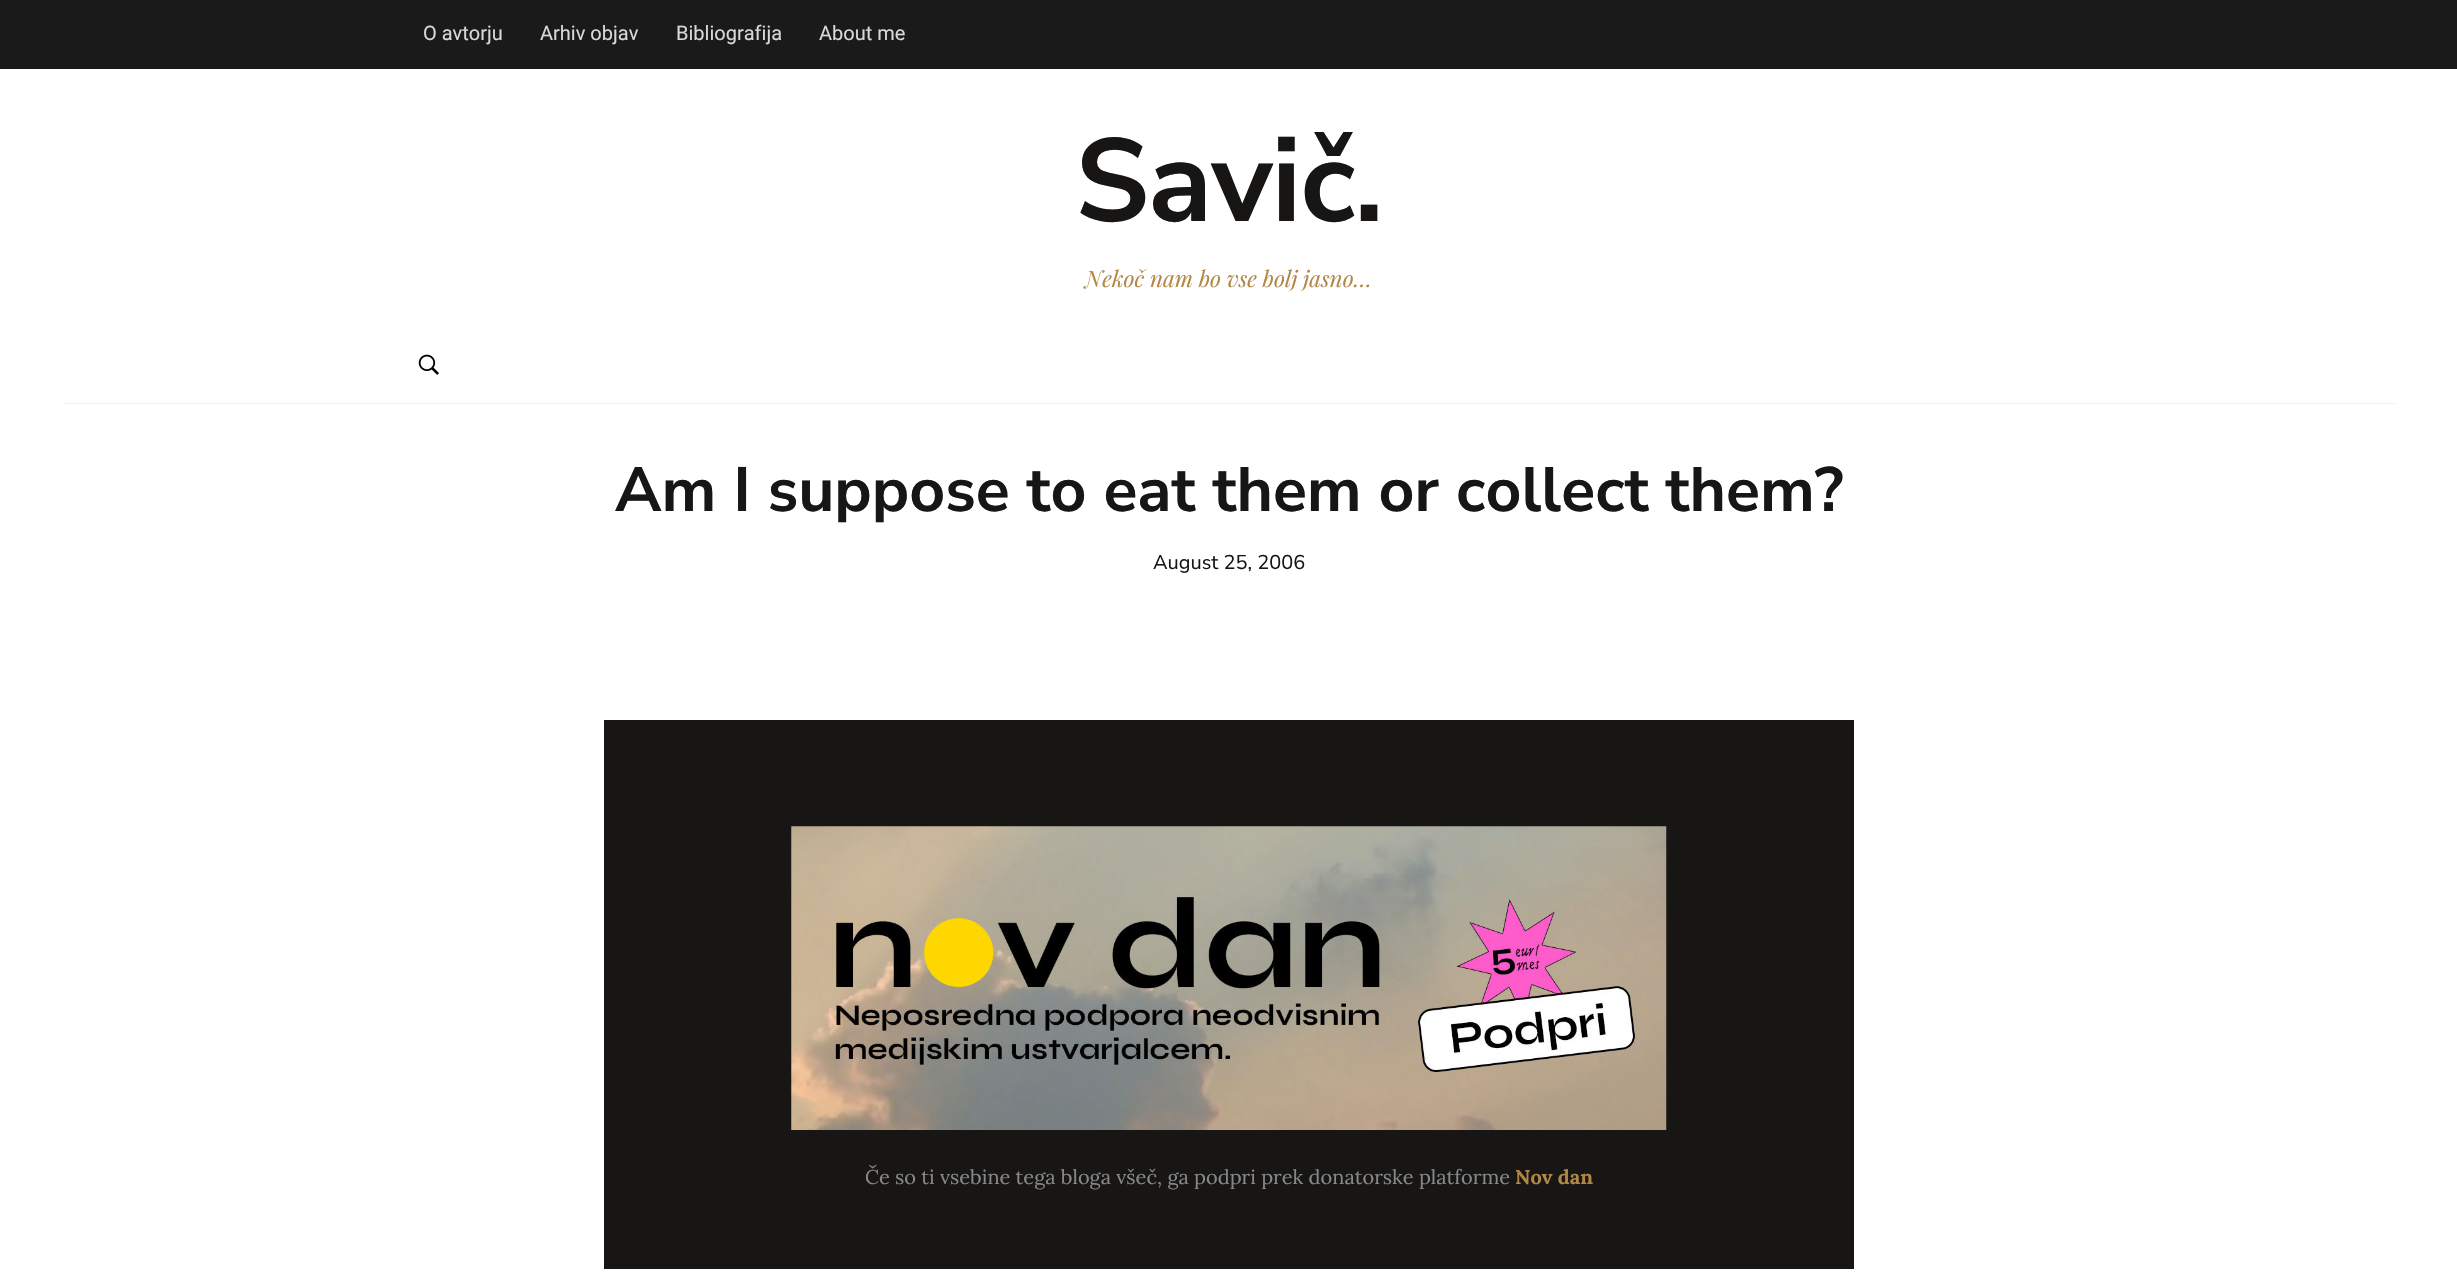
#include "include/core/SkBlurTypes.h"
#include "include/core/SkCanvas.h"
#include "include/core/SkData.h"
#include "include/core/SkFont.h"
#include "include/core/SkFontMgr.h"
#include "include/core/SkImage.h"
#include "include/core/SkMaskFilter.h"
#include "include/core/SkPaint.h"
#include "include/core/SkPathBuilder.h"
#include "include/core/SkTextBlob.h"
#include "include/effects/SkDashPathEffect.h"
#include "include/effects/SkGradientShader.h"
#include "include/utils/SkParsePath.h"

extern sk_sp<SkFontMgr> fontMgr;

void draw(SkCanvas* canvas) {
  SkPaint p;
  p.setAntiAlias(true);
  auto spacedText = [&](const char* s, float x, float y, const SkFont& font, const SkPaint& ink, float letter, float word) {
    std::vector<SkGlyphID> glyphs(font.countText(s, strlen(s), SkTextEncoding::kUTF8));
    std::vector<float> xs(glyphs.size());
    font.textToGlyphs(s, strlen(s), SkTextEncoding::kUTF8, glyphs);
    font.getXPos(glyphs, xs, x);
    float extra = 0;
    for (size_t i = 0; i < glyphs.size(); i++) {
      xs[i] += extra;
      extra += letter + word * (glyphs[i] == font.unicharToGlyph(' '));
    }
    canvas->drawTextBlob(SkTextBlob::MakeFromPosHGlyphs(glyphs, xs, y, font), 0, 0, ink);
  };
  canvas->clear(SK_ColorWHITE);
  p.setColor(SkColorSetRGB(26, 26, 26));
  canvas->drawRect(SkRect::MakeLTRB(0, 0, 2457, 69), p);
  canvas->drawImageRect(SkImages::DeferredFromEncodedData(SkData::MakeFromFileName("images/1.png")), SkRect::MakeLTRB(418, 354, 439, 375), SkSamplingOptions());
  p.setColor(SkColorSetRGB(238, 238, 238));
  canvas->drawRect(SkRect::MakeLTRB(63, 403, 2395, 404), p);
  p.setColor(SkColorSetRGB(23, 22, 21));
  canvas->drawRect(SkRect::MakeLTRB(604, 720, 1854, 1269), p);
  canvas->drawImageRect(SkImages::DeferredFromEncodedData(SkData::MakeFromFileName("images/2.png")), SkRect::MakeLTRB(791, 826, 1667, 1130), SkSamplingOptions());
  SkFont font1(fontMgr->matchFamilyStyle("Roboto", SkFontStyle::Normal()), 20);
  font1.setSubpixel(true);
  p.setColor(SkColorSetRGB(216, 216, 216));
  canvas->drawString("O avtorju", 423, 40, font1, p);
  canvas->drawString("Arhiv objav", 540, 40, font1, p);
  canvas->drawString("Bibliografija", 676, 40, font1, p);
  canvas->drawString("About me", 819, 40, font1, p);
  SkFont font2(fontMgr->matchFamilyStyle("Nunito Sans", SkFontStyle::Bold()), 117.5f);
  font2.setSubpixel(true);
  p.setColor(SkColorSetRGB(23, 22, 21));
  spacedText("Savič.", 1075, 221, font2, p, -1.25f, 0);
  SkFont font3(fontMgr->matchFamilyStyle("Playfair Display", SkFontStyle::Italic()), 22.5f);
  font3.setSubpixel(true);
  p.setColor(SkColorSetRGB(178, 134, 69));
  canvas->drawString("Nekoč nam bo vse bolj jasno…", 1085, 287, font3, p);
  SkFont font4(fontMgr->matchFamilyStyle("Nunito Sans", SkFontStyle::Bold()), 62.5f);
  font4.setSubpixel(true);
  p.setColor(SkColorSetRGB(23, 22, 21));
  canvas->drawString("Am I suppose to eat them or collect them?", 615, 511, font4, p);
  SkFont font5(fontMgr->matchFamilyStyle("Nunito Sans", SkFontStyle::Normal()), 20);
  font5.setSubpixel(true);
  canvas->drawString("August 25, 2006", 1153, 569, font5, p);
  SkFont font6(fontMgr->matchFamilyStyle("Lora", SkFontStyle::Normal()), 20);
  font6.setSubpixel(true);
  p.setColor(SkColorSetRGB(136, 136, 136));
  canvas->drawString("Če so ti vsebine tega bloga všeč, ga podpri prek donatorske platforme", 865, 1184, font6, p);
  SkFont font7(fontMgr->matchFamilyStyle("Lora", SkFontStyle::Bold()), 20);
  font7.setSubpixel(true);
  p.setColor(SkColorSetRGB(178, 134, 69));
  canvas->drawString("Nov dan", 1515, 1184, font7, p);
}
